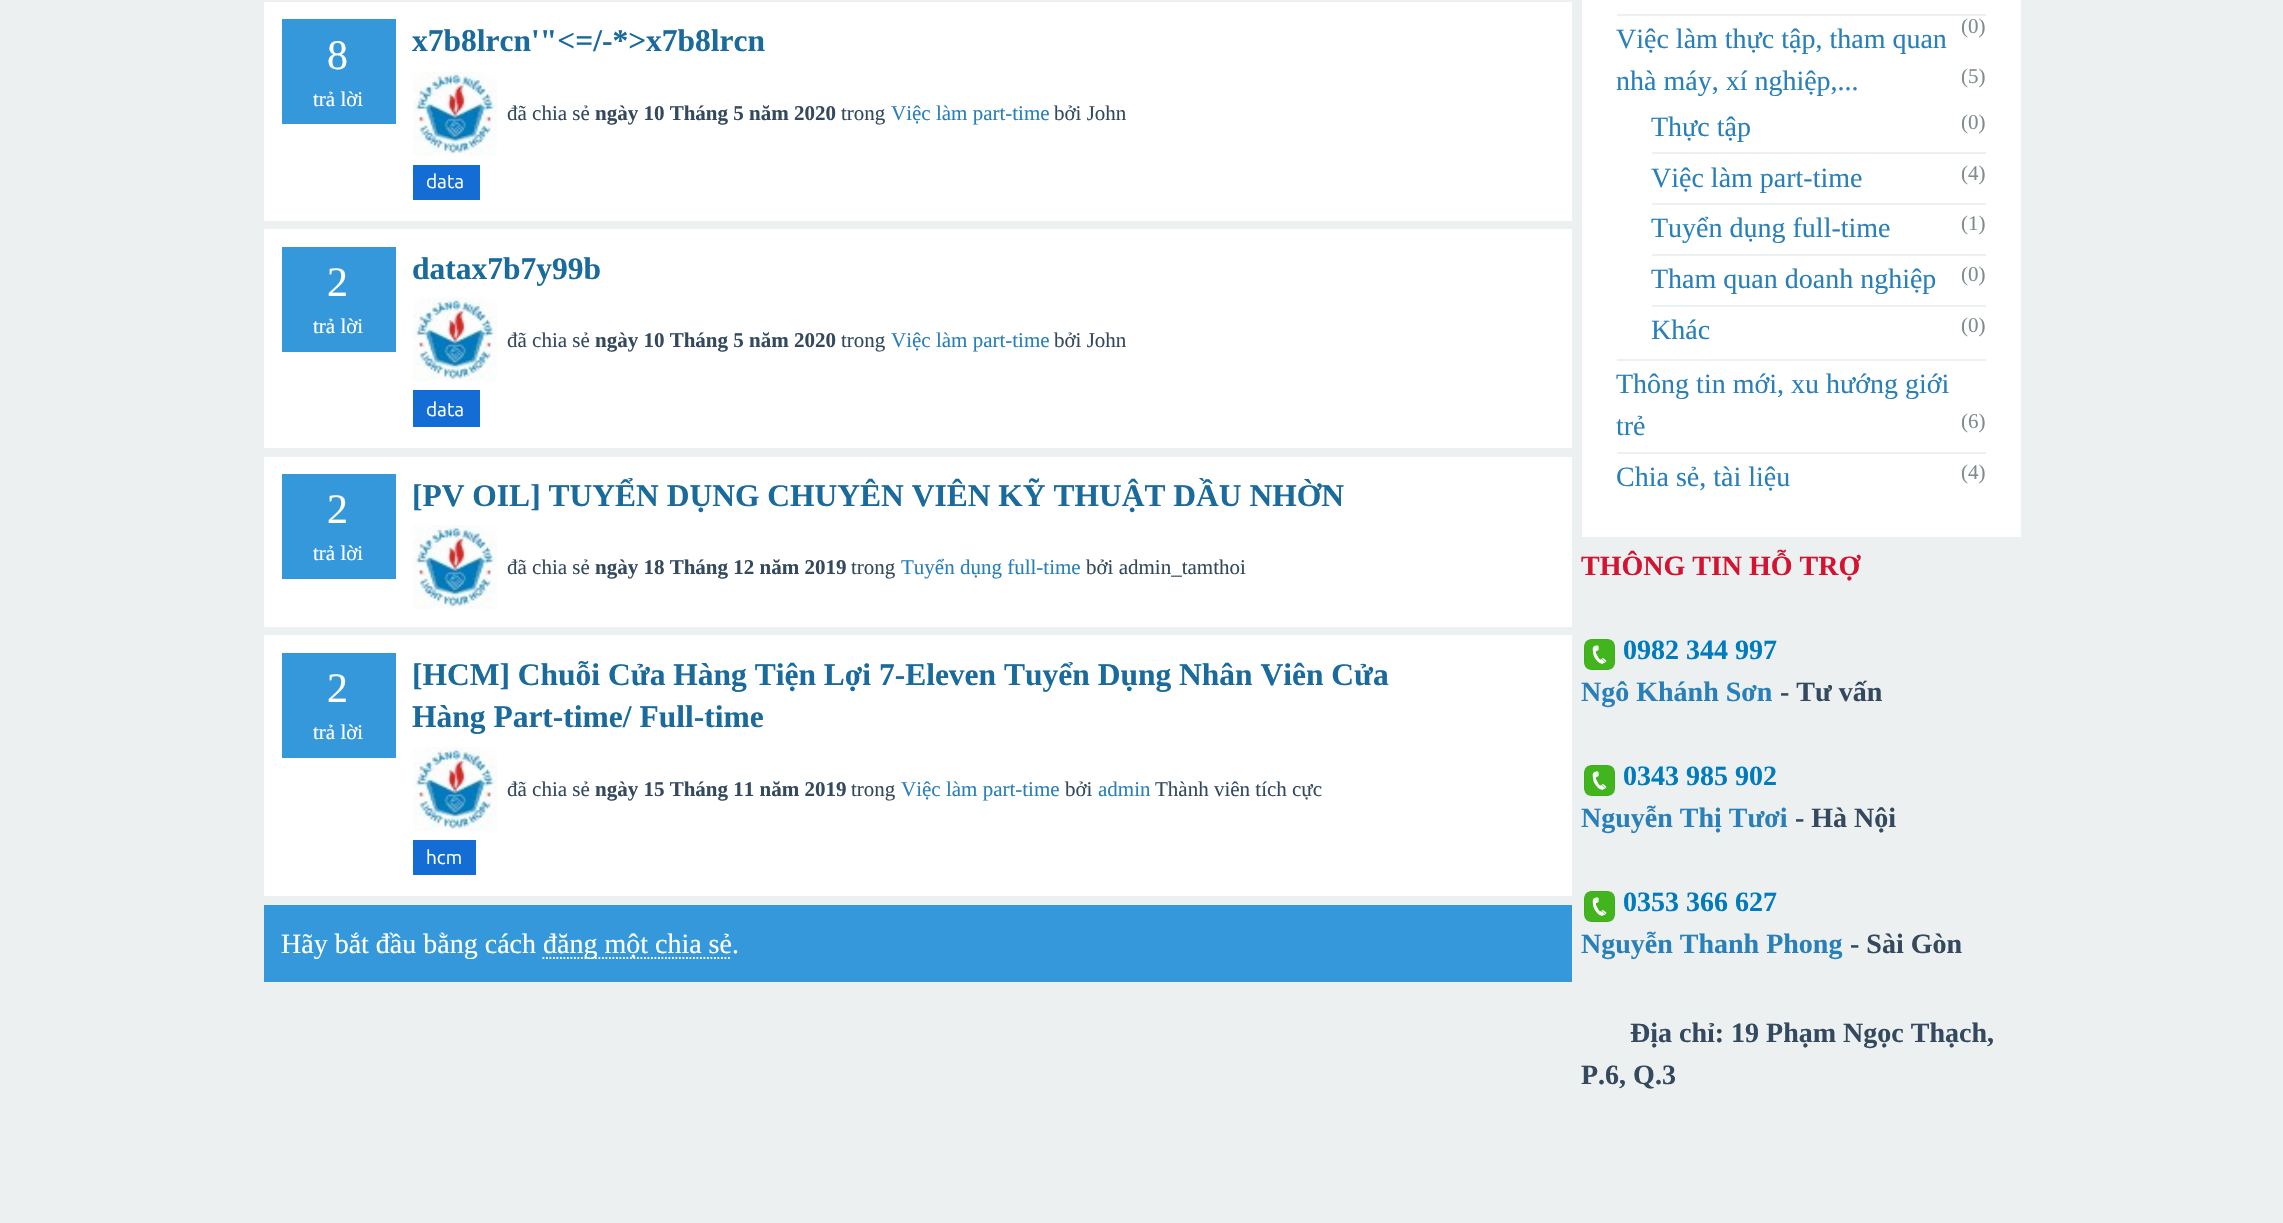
#include "include/core/SkBlurTypes.h"
#include "include/core/SkCanvas.h"
#include "include/core/SkData.h"
#include "include/core/SkFont.h"
#include "include/core/SkFontMgr.h"
#include "include/core/SkImage.h"
#include "include/core/SkMaskFilter.h"
#include "include/core/SkPaint.h"
#include "include/core/SkPathBuilder.h"
#include "include/core/SkTextBlob.h"
#include "include/effects/SkDashPathEffect.h"
#include "include/effects/SkGradientShader.h"
#include "include/utils/SkParsePath.h"

extern sk_sp<SkFontMgr> fontMgr;

void draw(SkCanvas* canvas) {
  SkPaint p;
  p.setAntiAlias(true);
  canvas->clear(SkColorSetRGB(236, 240, 241));
  p.setColor(SK_ColorWHITE);
  canvas->drawRect(SkRect::MakeLTRB(264, 2, 1572, 221), p);
  p.setColor(SkColorSetRGB(52, 152, 219));
  canvas->drawRect(SkRect::MakeLTRB(282, 19, 396, 124), p);
  canvas->drawImageRect(SkImages::DeferredFromEncodedData(SkData::MakeFromFileName("images/1.png")), SkRect::MakeLTRB(413, 71, 497, 156), SkSamplingOptions());
  p.setColor(SkColorSetRGB(19, 109, 212));
  canvas->drawRect(SkRect::MakeLTRB(413, 165, 480, 200), p);
  p.setColor(SK_ColorWHITE);
  canvas->drawRect(SkRect::MakeLTRB(264, 229, 1572, 448), p);
  p.setColor(SkColorSetRGB(52, 152, 219));
  canvas->drawRect(SkRect::MakeLTRB(282, 247, 396, 352), p);
  canvas->drawImageRect(SkImages::DeferredFromEncodedData(SkData::MakeFromFileName("images/2.png")), SkRect::MakeLTRB(413, 297, 497, 382), SkSamplingOptions());
  p.setColor(SkColorSetRGB(19, 109, 212));
  canvas->drawRect(SkRect::MakeLTRB(413, 390, 480, 427), p);
  p.setColor(SK_ColorWHITE);
  canvas->drawRect(SkRect::MakeLTRB(264, 457, 1572, 627), p);
  p.setColor(SkColorSetRGB(52, 152, 219));
  canvas->drawRect(SkRect::MakeLTRB(282, 474, 396, 579), p);
  canvas->drawImageRect(SkImages::DeferredFromEncodedData(SkData::MakeFromFileName("images/3.png")), SkRect::MakeLTRB(413, 525, 497, 609), SkSamplingOptions());
  p.setColor(SK_ColorWHITE);
  canvas->drawRect(SkRect::MakeLTRB(264, 635, 1572, 896), p);
  p.setColor(SkColorSetRGB(52, 152, 219));
  canvas->drawRect(SkRect::MakeLTRB(282, 653, 396, 758), p);
  canvas->drawImageRect(SkImages::DeferredFromEncodedData(SkData::MakeFromFileName("images/4.png")), SkRect::MakeLTRB(413, 747, 497, 832), SkSamplingOptions());
  p.setColor(SkColorSetRGB(19, 109, 212));
  canvas->drawRect(SkRect::MakeLTRB(413, 840, 476, 875), p);
  p.setColor(SkColorSetRGB(52, 152, 219));
  canvas->drawRect(SkRect::MakeLTRB(264, 905, 1572, 982), p);
  p.setStyle(SkPaint::kStroke_Style);
  p.setStrokeWidth(1.8f);
  p.setColor(SK_ColorWHITE);
  p.setPathEffect(SkDashPathEffect::Make({{1.75f, 1.75f}}, 0));
  canvas->drawPath(SkPathBuilder().moveTo(542.5f, 958).lineTo(731.5f, 958).detach(), p);
  p.setPathEffect(nullptr);
  p.setStyle(SkPaint::kFill_Style);
  canvas->drawRect(SkRect::MakeLTRB(1582, 0, 2021, 537), p);
  p.setColor(SkColorSetRGB(236, 240, 241));
  canvas->drawRect(SkRect::MakeLTRB(1617, 14, 1986, 16), p);
  canvas->drawRect(SkRect::MakeLTRB(1617, 359, 1986, 361), p);
  canvas->drawRect(SkRect::MakeLTRB(1652, 152, 1986, 154), p);
  canvas->drawRect(SkRect::MakeLTRB(1652, 203, 1986, 205), p);
  canvas->drawRect(SkRect::MakeLTRB(1652, 254, 1986, 256), p);
  canvas->drawRect(SkRect::MakeLTRB(1652, 305, 1986, 307), p);
  canvas->drawRect(SkRect::MakeLTRB(1617, 452, 1986, 454), p);
  canvas->drawImageRect(SkImages::DeferredFromEncodedData(SkData::MakeFromFileName("images/5.png")), SkRect::MakeLTRB(1584, 639, 1615, 670), SkSamplingOptions());
  canvas->drawImageRect(SkImages::DeferredFromEncodedData(SkData::MakeFromFileName("images/5.png")), SkRect::MakeLTRB(1584, 765, 1615, 796), SkSamplingOptions());
  canvas->drawImageRect(SkImages::DeferredFromEncodedData(SkData::MakeFromFileName("images/5.png")), SkRect::MakeLTRB(1584, 891, 1615, 922), SkSamplingOptions());
  SkFont font1(fontMgr->matchFamilyStyle("Liberation Serif", SkFontStyle::Normal()), 42);
  font1.setSubpixel(true);
  p.setColor(SK_ColorWHITE);
  canvas->drawString("8", 327, 69, font1, p);
  SkFont font2(fontMgr->matchFamilyStyle("Liberation Serif", SkFontStyle::Normal()), 21);
  font2.setSubpixel(true);
  canvas->drawString("trả lời", 313, 106, font2, p);
  SkFont font3(fontMgr->matchFamilyStyle("Liberation Serif", SkFontStyle::Bold()), 31.5f);
  font3.setSubpixel(true);
  p.setColor(SkColorSetRGB(26, 106, 155));
  canvas->drawString("x7b8lrcn'\"<=/-*>x7b8lrcn", 412, 51, font3, p);
  p.setColor(SkColorSetRGB(52, 73, 94));
  canvas->drawString("đã chia sẻ", 507, 120, font2, p);
  SkFont font4(fontMgr->matchFamilyStyle("Liberation Serif", SkFontStyle::Bold()), 21);
  font4.setSubpixel(true);
  canvas->drawString("ngày 10 Tháng 5 năm 2020", 595, 120, font4, p);
  canvas->drawString("trong", 841, 120, font2, p);
  p.setColor(SkColorSetRGB(41, 128, 185));
  canvas->drawString("Việc làm part-time", 891, 120, font2, p);
  p.setColor(SkColorSetRGB(52, 73, 94));
  canvas->drawString("bởi John", 1054, 120, font2, p);
  SkFont font5(fontMgr->matchFamilyStyle("Ubuntu", SkFontStyle::Normal()), 19);
  font5.setSubpixel(true);
  p.setColor(SK_ColorWHITE);
  canvas->drawString("data", 426, 188, font5, p);
  canvas->drawString("2", 327, 296, font1, p);
  canvas->drawString("trả lời", 313, 333, font2, p);
  p.setColor(SkColorSetRGB(26, 106, 155));
  canvas->drawString("datax7b7y99b", 412, 279, font3, p);
  p.setColor(SkColorSetRGB(52, 73, 94));
  canvas->drawString("đã chia sẻ", 507, 347, font2, p);
  canvas->drawString("ngày 10 Tháng 5 năm 2020", 595, 347, font4, p);
  canvas->drawString("trong", 841, 347, font2, p);
  p.setColor(SkColorSetRGB(41, 128, 185));
  canvas->drawString("Việc làm part-time", 891, 347, font2, p);
  p.setColor(SkColorSetRGB(52, 73, 94));
  canvas->drawString("bởi John", 1054, 347, font2, p);
  p.setColor(SK_ColorWHITE);
  canvas->drawString("data", 426, 416, font5, p);
  canvas->drawString("2", 327, 523, font1, p);
  canvas->drawString("trả lời", 313, 560, font2, p);
  p.setColor(SkColorSetRGB(26, 106, 155));
  canvas->drawString("[PV OIL] TUYỂN DỤNG CHUYÊN VIÊN KỸ THUẬT DẦU NHỜN", 412, 506, font3, p);
  p.setColor(SkColorSetRGB(52, 73, 94));
  canvas->drawString("đã chia sẻ", 507, 574, font2, p);
  canvas->drawString("ngày 18 Tháng 12 năm 2019", 595, 574, font4, p);
  canvas->drawString("trong", 851, 574, font2, p);
  p.setColor(SkColorSetRGB(41, 128, 185));
  canvas->drawString("Tuyển dụng full-time", 901, 574, font2, p);
  p.setColor(SkColorSetRGB(52, 73, 94));
  canvas->drawString("bởi admin_tamthoi", 1086, 574, font2, p);
  p.setColor(SK_ColorWHITE);
  canvas->drawString("2", 327, 702, font1, p);
  canvas->drawString("trả lời", 313, 739, font2, p);
  p.setColor(SkColorSetRGB(26, 106, 155));
  canvas->drawString("[HCM] Chuỗi Cửa Hàng Tiện Lợi 7-Eleven Tuyển Dụng Nhân Viên Cửa", 412, 685, font3, p);
  canvas->drawString("Hàng Part-time/ Full-time", 412, 727, font3, p);
  p.setColor(SkColorSetRGB(52, 73, 94));
  canvas->drawString("đã chia sẻ", 507, 796, font2, p);
  canvas->drawString("ngày 15 Tháng 11 năm 2019", 595, 796, font4, p);
  canvas->drawString("trong", 851, 796, font2, p);
  p.setColor(SkColorSetRGB(41, 128, 185));
  canvas->drawString("Việc làm part-time", 901, 796, font2, p);
  p.setColor(SkColorSetRGB(52, 73, 94));
  canvas->drawString("bởi", 1065, 796, font2, p);
  p.setColor(SkColorSetRGB(41, 128, 185));
  canvas->drawString("admin", 1098, 796, font2, p);
  p.setColor(SkColorSetRGB(52, 73, 94));
  canvas->drawString("Thành viên tích cực", 1155, 796, font2, p);
  p.setColor(SK_ColorWHITE);
  canvas->drawString("hcm", 426, 864, font5, p);
  SkFont font6(fontMgr->matchFamilyStyle("Liberation Serif", SkFontStyle::Normal()), 28);
  font6.setSubpixel(true);
  canvas->drawString("Hãy bắt đầu bằng cách", 281, 953, font6, p);
  canvas->drawString("đăng một chia sẻ.", 543, 953, font6, p);
  p.setColor(SkColorSetRGB(127, 140, 141));
  canvas->drawString("(0)", 1961, 33, font2, p);
  p.setColor(SkColorSetRGB(41, 128, 185));
  canvas->drawString("Việc làm thực tập, tham quan", 1616, 48, font6, p);
  canvas->drawString("nhà máy, xí nghiệp,...", 1616, 90, font6, p);
  p.setColor(SkColorSetRGB(127, 140, 141));
  canvas->drawString("(5)", 1961, 83, font2, p);
  p.setColor(SkColorSetRGB(41, 128, 185));
  canvas->drawString("Thực tập", 1651, 136, font6, p);
  p.setColor(SkColorSetRGB(127, 140, 141));
  canvas->drawString("(0)", 1961, 129, font2, p);
  p.setColor(SkColorSetRGB(41, 128, 185));
  canvas->drawString("Việc làm part-time", 1651, 187, font6, p);
  p.setColor(SkColorSetRGB(127, 140, 141));
  canvas->drawString("(4)", 1961, 180, font2, p);
  p.setColor(SkColorSetRGB(41, 128, 185));
  canvas->drawString("Tuyển dụng full-time", 1651, 237, font6, p);
  p.setColor(SkColorSetRGB(127, 140, 141));
  canvas->drawString("(1)", 1961, 230, font2, p);
  p.setColor(SkColorSetRGB(41, 128, 185));
  canvas->drawString("Tham quan doanh nghiệp", 1651, 288, font6, p);
  p.setColor(SkColorSetRGB(127, 140, 141));
  canvas->drawString("(0)", 1961, 281, font2, p);
  p.setColor(SkColorSetRGB(41, 128, 185));
  canvas->drawString("Khác", 1651, 339, font6, p);
  p.setColor(SkColorSetRGB(127, 140, 141));
  canvas->drawString("(0)", 1961, 332, font2, p);
  p.setColor(SkColorSetRGB(41, 128, 185));
  canvas->drawString("Thông tin mới, xu hướng giới", 1616, 393, font6, p);
  canvas->drawString("trẻ", 1616, 435, font6, p);
  p.setColor(SkColorSetRGB(127, 140, 141));
  canvas->drawString("(6)", 1961, 428, font2, p);
  p.setColor(SkColorSetRGB(41, 128, 185));
  canvas->drawString("Chia sẻ, tài liệu", 1616, 486, font6, p);
  p.setColor(SkColorSetRGB(127, 140, 141));
  canvas->drawString("(4)", 1961, 479, font2, p);
  SkFont font7(fontMgr->matchFamilyStyle("Liberation Serif", SkFontStyle::Bold()), 28);
  font7.setSubpixel(true);
  p.setColor(SkColorSetRGB(211, 19, 47));
  canvas->drawString("THÔNG TIN HỖ TRỢ", 1581, 575, font7, p);
  p.setColor(SkColorSetRGB(0, 123, 190));
  canvas->drawString("0982 344 997", 1623, 659, font7, p);
  p.setColor(SkColorSetRGB(41, 128, 185));
  canvas->drawString("Ngô Khánh Sơn", 1581, 701, font7, p);
  p.setColor(SkColorSetRGB(52, 73, 94));
  canvas->drawString("- Tư vấn", 1780, 701, font7, p);
  p.setColor(SkColorSetRGB(0, 123, 190));
  canvas->drawString("0343 985 902", 1623, 785, font7, p);
  p.setColor(SkColorSetRGB(41, 128, 185));
  canvas->drawString("Nguyễn Thị Tươi", 1581, 827, font7, p);
  p.setColor(SkColorSetRGB(52, 73, 94));
  canvas->drawString("- Hà Nội", 1795, 827, font7, p);
  p.setColor(SkColorSetRGB(0, 123, 190));
  canvas->drawString("0353 366 627", 1623, 911, font7, p);
  p.setColor(SkColorSetRGB(41, 128, 185));
  canvas->drawString("Nguyễn Thanh Phong", 1581, 953, font7, p);
  p.setColor(SkColorSetRGB(52, 73, 94));
  canvas->drawString("- Sài Gòn", 1850, 953, font7, p);
  canvas->drawString("Địa chỉ: 19 Phạm Ngọc Thạch,", 1630, 1042, font7, p);
  canvas->drawString("P.6, Q.3", 1581, 1084, font7, p);
}
